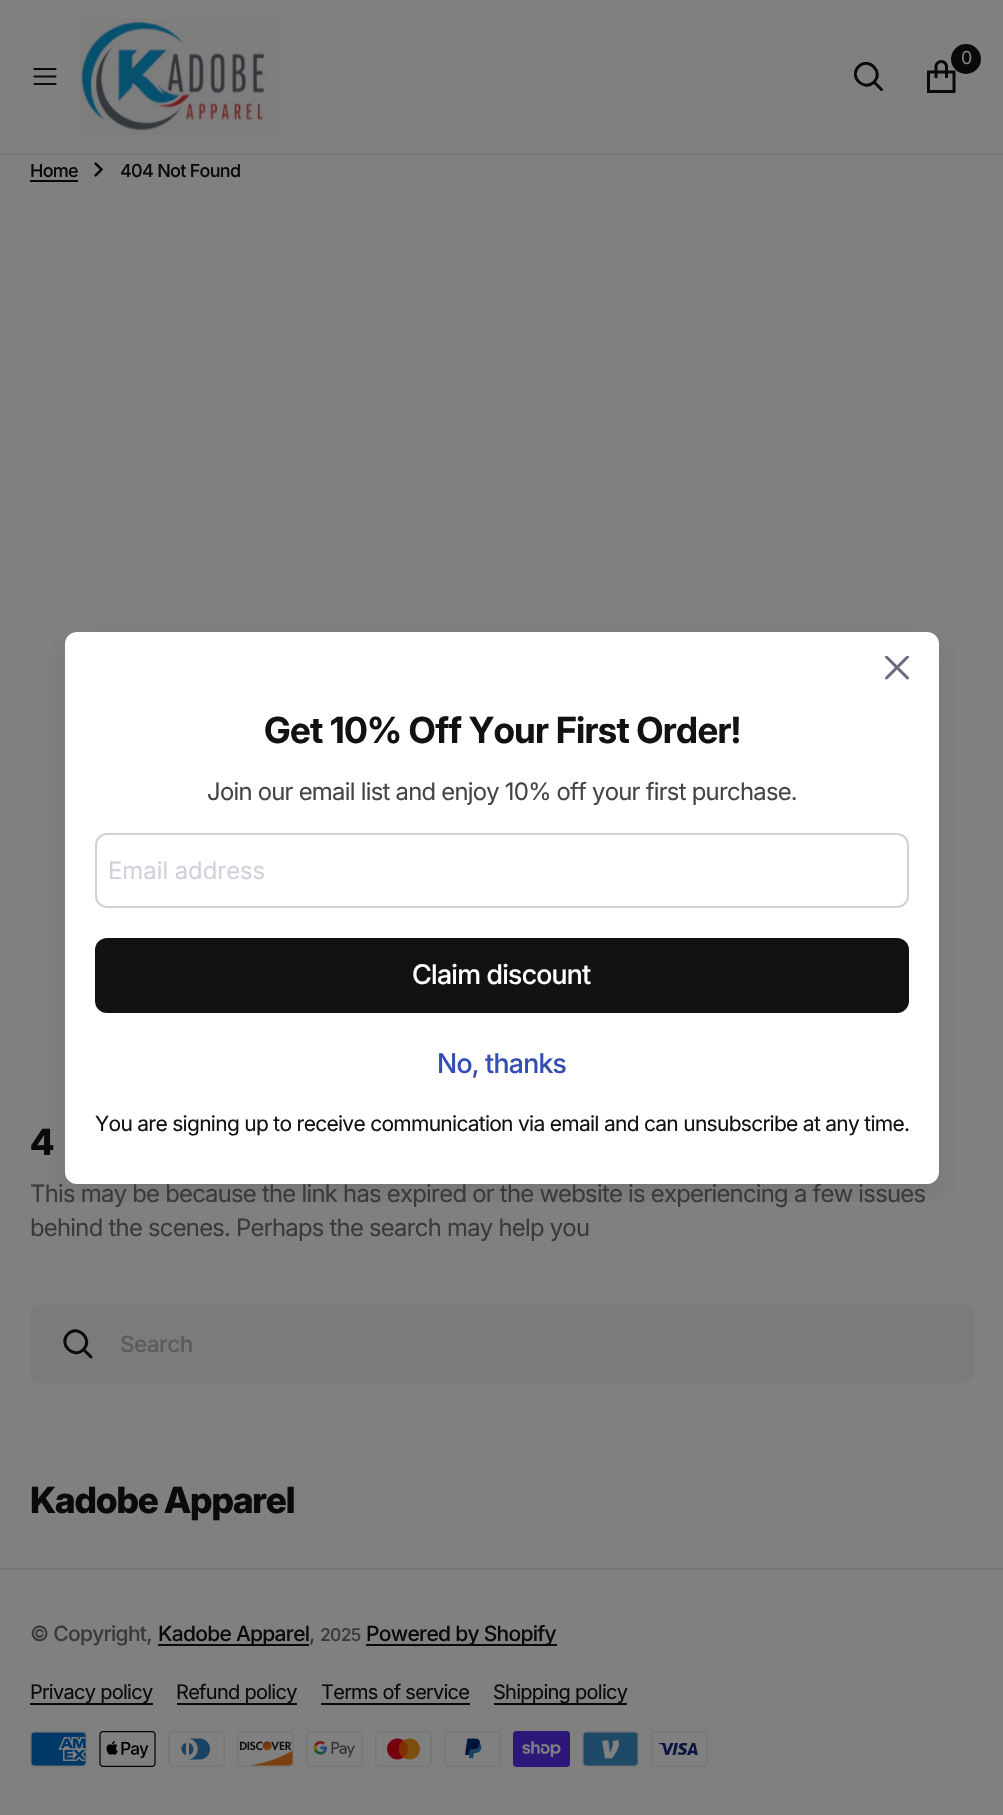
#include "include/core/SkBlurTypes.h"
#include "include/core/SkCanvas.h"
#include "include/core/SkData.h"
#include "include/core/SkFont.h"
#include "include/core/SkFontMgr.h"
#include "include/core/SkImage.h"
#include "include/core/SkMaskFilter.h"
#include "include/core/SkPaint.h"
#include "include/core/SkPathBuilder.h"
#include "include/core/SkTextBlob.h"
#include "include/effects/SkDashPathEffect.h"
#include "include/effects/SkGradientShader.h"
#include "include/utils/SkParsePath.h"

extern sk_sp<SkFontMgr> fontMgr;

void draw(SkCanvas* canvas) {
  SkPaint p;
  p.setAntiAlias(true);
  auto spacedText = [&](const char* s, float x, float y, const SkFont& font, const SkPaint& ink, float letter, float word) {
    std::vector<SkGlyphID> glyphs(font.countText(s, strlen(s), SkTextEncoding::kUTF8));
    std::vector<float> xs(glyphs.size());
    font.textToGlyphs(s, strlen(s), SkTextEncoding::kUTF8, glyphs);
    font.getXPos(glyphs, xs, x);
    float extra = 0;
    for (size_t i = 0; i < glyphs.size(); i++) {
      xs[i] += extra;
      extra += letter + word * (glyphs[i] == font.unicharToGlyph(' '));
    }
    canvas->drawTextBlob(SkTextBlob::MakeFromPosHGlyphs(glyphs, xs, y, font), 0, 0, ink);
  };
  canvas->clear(SkColorSetRGB(128, 128, 128));
  p.setColor(SkColorSetRGB(117, 117, 117));
  canvas->drawRect(SkRect::MakeLTRB(0, 153, 1003, 155), p);
  canvas->drawImageRect(SkImages::DeferredFromEncodedData(SkData::MakeFromFileName("images/1.png")), SkRect::MakeLTRB(79, 18, 282, 135), SkSamplingOptions());
  canvas->drawImageRect(SkImages::DeferredFromEncodedData(SkData::MakeFromFileName("images/2.png")), SkRect::MakeLTRB(927, 60, 956, 93), SkSamplingOptions());
  p.setColor(SkColorSetRGB(10, 10, 10));
  canvas->drawCircle(966, 59, 15, p);
  canvas->save();
  canvas->clipRect(SkRect::MakeLTRB(854, 62, 884, 92));
  p.setStyle(SkPaint::kStroke_Style);
  p.setStrokeWidth(3);
  p.setStrokeCap(SkPaint::kRound_Cap);
  p.setStrokeJoin(SkPaint::kRound_Join);
  canvas->drawPath(SkPathBuilder().moveTo(881.5f, 89.5f).lineTo(874, 82).moveTo(874, 82).cubicTo(884, 72, 868.5f, 56.5f, 858.5f, 66.5f).cubicTo(848.5f, 76.5f, 864, 92, 874, 82).close().detach(), p);
  canvas->restore();
  p.setStrokeWidth(2.2f);
  canvas->drawPath(SkPathBuilder().moveTo(34.5f, 76.5f).lineTo(55.5f, 76.5f).moveTo(34.5f, 69).lineTo(55.5f, 69).moveTo(34.5f, 84).lineTo(55.5f, 84).detach(), p);
  p.setStyle(SkPaint::kFill_Style);
  canvas->drawRect(SkRect::MakeLTRB(30, 180, 78, 182), p);
  canvas->drawImageRect(SkImages::DeferredFromEncodedData(SkData::MakeFromFileName("images/3.png")), SkRect::MakeLTRB(94, 162, 104, 177), SkSamplingOptions());
  canvas->save();
  canvas->clipRect(SkRect::MakeLTRB(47, 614, 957, 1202));
  p.setColor(SkColorSetARGB(26, 18, 17, 39));
  p.setMaskFilter(SkMaskFilter::MakeBlur(kNormal_SkBlurStyle, 15));
  canvas->drawRoundRect(SkRect::MakeLTRB(65, 644, 939, 1196), 12, 12, p);
  p.setMaskFilter(nullptr);
  canvas->restore();
  p.setColor(SkColorSetRGB(123, 123, 123));
  canvas->drawRoundRect(SkRect::MakeLTRB(30, 1304, 974, 1383), 12, 12, p);
  p.setStyle(SkPaint::kStroke_Style);
  p.setStrokeWidth(3);
  p.setColor(SkColorSetRGB(10, 10, 10));
  canvas->drawPath(SkPathBuilder().moveTo(91, 1357).lineTo(83.5f, 1349.5f).moveTo(83.5f, 1349.5f).cubicTo(93.5f, 1339.5f, 78, 1324, 68, 1334).cubicTo(58, 1344, 73.5f, 1359.5f, 83.5f, 1349.5f).close().detach(), p);
  p.setStyle(SkPaint::kFill_Style);
  p.setColor(SkColorSetRGB(117, 117, 117));
  canvas->drawRect(SkRect::MakeLTRB(0, 1568, 1003, 1570), p);
  p.setColor(SkColorSetRGB(10, 10, 10));
  canvas->drawRect(SkRect::MakeLTRB(158, 1644, 309, 1646), p);
  canvas->drawRect(SkRect::MakeLTRB(366, 1644, 557, 1646), p);
  canvas->drawRect(SkRect::MakeLTRB(30, 1703, 153, 1705), p);
  canvas->drawRect(SkRect::MakeLTRB(177, 1703, 297, 1705), p);
  canvas->drawRect(SkRect::MakeLTRB(321, 1703, 470, 1705), p);
  canvas->drawRect(SkRect::MakeLTRB(494, 1703, 627, 1705), p);
  canvas->drawImageRect(SkImages::DeferredFromEncodedData(SkData::MakeFromFileName("images/5.png")), SkRect::MakeLTRB(30, 1731, 87, 1767), SkSamplingOptions());
  canvas->drawImageRect(SkImages::DeferredFromEncodedData(SkData::MakeFromFileName("images/6.png")), SkRect::MakeLTRB(99, 1731, 156, 1767), SkSamplingOptions());
  canvas->drawImageRect(SkImages::DeferredFromEncodedData(SkData::MakeFromFileName("images/7.png")), SkRect::MakeLTRB(168, 1731, 225, 1767), SkSamplingOptions());
  canvas->drawImageRect(SkImages::DeferredFromEncodedData(SkData::MakeFromFileName("images/8.png")), SkRect::MakeLTRB(237, 1731, 294, 1767), SkSamplingOptions());
  canvas->drawImageRect(SkImages::DeferredFromEncodedData(SkData::MakeFromFileName("images/9.png")), SkRect::MakeLTRB(306, 1731, 363, 1767), SkSamplingOptions());
  canvas->drawImageRect(SkImages::DeferredFromEncodedData(SkData::MakeFromFileName("images/10.png")), SkRect::MakeLTRB(375, 1731, 432, 1767), SkSamplingOptions());
  canvas->drawImageRect(SkImages::DeferredFromEncodedData(SkData::MakeFromFileName("images/11.png")), SkRect::MakeLTRB(444, 1731, 501, 1767), SkSamplingOptions());
  canvas->drawImageRect(SkImages::DeferredFromEncodedData(SkData::MakeFromFileName("images/12.png")), SkRect::MakeLTRB(513, 1731, 570, 1767), SkSamplingOptions());
  canvas->drawImageRect(SkImages::DeferredFromEncodedData(SkData::MakeFromFileName("images/13.png")), SkRect::MakeLTRB(582, 1731, 639, 1767), SkSamplingOptions());
  canvas->drawImageRect(SkImages::DeferredFromEncodedData(SkData::MakeFromFileName("images/14.png")), SkRect::MakeLTRB(651, 1731, 708, 1767), SkSamplingOptions());
  SkFont font1(fontMgr->matchFamilyStyle("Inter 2", SkFontStyle::Normal()), 18);
  font1.setSubpixel(true);
  p.setColor(SkColorSetRGB(128, 128, 128));
  spacedText("0", 961, 64, font1, p, -0.72f, 0);
  SkFont font2(fontMgr->matchFamilyStyle("Inter", SkFontStyle(500, SkFontStyle::kNormal_Width, SkFontStyle::kUpright_Slant)), 18);
  font2.setSubpixel(true);
  p.setColor(SkColorSetRGB(10, 10, 10));
  spacedText("Home", 30, 177, font2, p, -0.72f, 0);
  spacedText("404 Not Found", 120, 177, font2, p, -0.72f, 0);
  SkFont font3(fontMgr->matchFamilyStyle("Inter", SkFontStyle(800, SkFontStyle::kNormal_Width, SkFontStyle::kUpright_Slant)), 36);
  font3.setSubpixel(true);
  spacedText("4", 30, 1155, font3, p, -1.1f, 0);
  SkFont font4(fontMgr->matchFamilyStyle("Inter", SkFontStyle::Normal()), 24);
  font4.setSubpixel(true);
  p.setColor(SkColorSetRGB(58, 58, 58));
  spacedText("This may be because the link has expired or the website is experiencing a few issues", 30, 1202, font4, p, -0.72f, 0);
  p.setColor(SK_ColorWHITE);
  canvas->drawRoundRect(SkRect::MakeLTRB(65, 632, 939, 1184), 12, 12, p);
  canvas->drawImageRect(SkImages::DeferredFromEncodedData(SkData::MakeFromFileName("images/4.png")), SkRect::MakeLTRB(885, 656, 909, 680), SkSamplingOptions());
  p.setColor(SkColorSetRGB(18, 18, 18));
  canvas->drawRoundRect(SkRect::MakeLTRB(95, 938, 909, 1013), 12, 12, p);
  SkFont font5(fontMgr->matchFamilyStyle("Inter 2", SkFontStyle(500, SkFontStyle::kNormal_Width, SkFontStyle::kUpright_Slant)), 27);
  font5.setSubpixel(true);
  p.setColor(SK_ColorWHITE);
  spacedText("Claim discount", 412, 984, font5, p, -0.72f, 0);
  p.setStyle(SkPaint::kStroke_Style);
  p.setStrokeWidth(2);
  p.setStrokeCap(SkPaint::kButt_Cap);
  p.setStrokeJoin(SkPaint::kMiter_Join);
  p.setColor(SkColorSetRGB(209, 209, 219));
  canvas->drawRoundRect(SkRect::MakeLTRB(96, 834, 908, 907), 11, 11, p);
  p.setStyle(SkPaint::kFill_Style);
  canvas->drawString("Email address", 108, 879, font4, p);
  SkFont font6(fontMgr->matchFamilyStyle("Inter 2", SkFontStyle::Normal()), 21);
  font6.setSubpixel(true);
  p.setColor(SkColorSetRGB(18, 18, 18));
  spacedText("You are signing up to receive communication via email and can unsubscribe at any time.", 95, 1131, font6, p, -0.72f, 0);
  p.setColor(SkColorSetRGB(51, 79, 180));
  spacedText("No, thanks", 437, 1073, font5, p, -0.72f, 0);
  p.setColor(SkColorSetRGB(69, 69, 69));
  spacedText("Join our email list and enjoy 10% off your first purchase.", 207, 800, font4, p, -0.72f, 0);
  SkFont font7(fontMgr->matchFamilyStyle("Inter", SkFontStyle::Bold()), 36);
  font7.setSubpixel(true);
  p.setColor(SkColorSetRGB(18, 18, 18));
  spacedText("Get 10% Off Your First Order!", 264, 743, font7, p, -0.72f, 0);
  p.setColor(SkColorSetRGB(58, 58, 58));
  spacedText("behind the scenes. Perhaps the search may help you", 30, 1236, font4, p, -0.72f, 0);
  SkFont font8(fontMgr->matchFamilyStyle("Inter", SkFontStyle(500, SkFontStyle::kNormal_Width, SkFontStyle::kUpright_Slant)), 22.5f);
  font8.setSubpixel(true);
  p.setColor(SkColorSetRGB(91, 91, 91));
  spacedText("Search", 120, 1352, font8, p, -0.5f, 0);
  p.setColor(SkColorSetRGB(10, 10, 10));
  spacedText("Kadobe Apparel", 30, 1513, font3, p, -1.1f, 0);
  SkFont font9(fontMgr->matchFamilyStyle("Inter", SkFontStyle(500, SkFontStyle::kNormal_Width, SkFontStyle::kUpright_Slant)), 21);
  font9.setSubpixel(true);
  p.setColor(SkColorSetRGB(58, 58, 58));
  spacedText("© Copyright,", 30, 1641, font9, p, -0.72f, 0);
  p.setColor(SkColorSetRGB(10, 10, 10));
  spacedText("Kadobe Apparel", 158, 1641, font9, p, -0.72f, 0);
  p.setColor(SkColorSetRGB(58, 58, 58));
  spacedText(",", 309, 1641, font9, p, -0.72f, 0);
  SkFont font10(fontMgr->matchFamilyStyle("Inter", SkFontStyle(500, SkFontStyle::kNormal_Width, SkFontStyle::kUpright_Slant)), 17.5f);
  font10.setSubpixel(true);
  spacedText("2025", 320, 1641, font10, p, -0.72f, 0);
  p.setColor(SkColorSetRGB(10, 10, 10));
  spacedText("Powered by Shopify", 366, 1641, font9, p, -0.72f, 0);
  SkFont font11(fontMgr->matchFamilyStyle("Inter 2", SkFontStyle::Normal()), 20);
  font11.setSubpixel(true);
  spacedText("Privacy policy", 30, 1699, font11, p, -0.72f, 0);
  spacedText("Refund policy", 176, 1699, font11, p, -0.72f, 0);
  spacedText("Terms of service", 321, 1699, font11, p, -0.72f, 0);
  spacedText("Shipping policy", 493, 1699, font11, p, -0.72f, 0);
}
